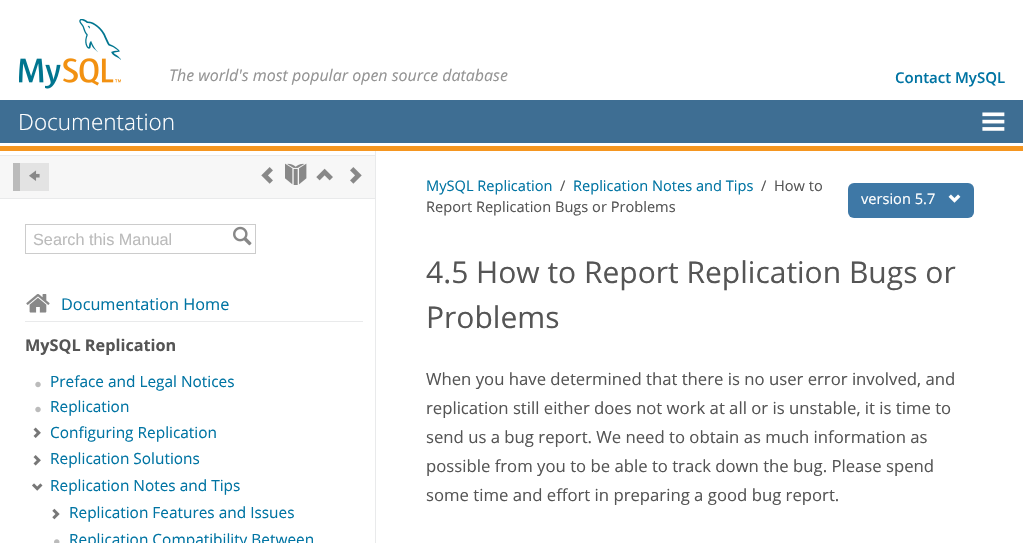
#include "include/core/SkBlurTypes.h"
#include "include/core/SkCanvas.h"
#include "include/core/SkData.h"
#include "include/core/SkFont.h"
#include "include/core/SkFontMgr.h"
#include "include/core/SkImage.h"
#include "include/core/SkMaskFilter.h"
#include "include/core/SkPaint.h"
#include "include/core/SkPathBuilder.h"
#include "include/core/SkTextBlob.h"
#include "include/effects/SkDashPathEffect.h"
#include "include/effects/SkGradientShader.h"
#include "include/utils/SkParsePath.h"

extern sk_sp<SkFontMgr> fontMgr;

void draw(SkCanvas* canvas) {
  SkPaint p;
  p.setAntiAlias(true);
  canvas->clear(SK_ColorWHITE);
  canvas->drawImageRect(SkImages::DeferredFromEncodedData(SkData::MakeFromFileName("images/1.png")), SkRect::MakeLTRB(19, 19, 121, 89), SkSamplingOptions());
  p.setColor(SkColorSetRGB(62, 110, 147));
  canvas->drawRect(SkRect::MakeLTRB(0, 100, 1023, 143), p);
  canvas->drawImageRect(SkImages::DeferredFromEncodedData(SkData::MakeFromFileName("images/2.png")), SkRect::MakeLTRB(982, 112, 1005, 131), SkSamplingOptions());
  p.setColor(SkColorSetRGB(245, 150, 32));
  canvas->drawRect(SkRect::MakeLTRB(0, 146, 1023, 151), p);
  p.setColor(SkColorSetRGB(233, 234, 235));
  canvas->drawRect(SkRect::MakeLTRB(375, 151, 376, 543), p);
  p.setColor(SkColorSetRGB(247, 247, 247));
  canvas->drawRect(SkRect::MakeLTRB(0, 156, 375, 198), p);
  p.setColor(SkColorSetRGB(233, 234, 235));
  canvas->drawRect(SkRect::MakeLTRB(0, 155, 375, 156), p);
  canvas->drawRect(SkRect::MakeLTRB(0, 198, 375, 199), p);
  p.setColor(SkColorSetRGB(227, 227, 227));
  canvas->drawRect(SkRect::MakeLTRB(20, 163, 49, 191), p);
  p.setColor(SkColorSetRGB(187, 187, 187));
  canvas->drawRect(SkRect::MakeLTRB(13, 163, 20, 191), p);
  canvas->drawImageRect(SkImages::DeferredFromEncodedData(SkData::MakeFromFileName("images/3.png")), SkRect::MakeLTRB(29, 170, 40, 181), SkSamplingOptions());
  canvas->drawImageRect(SkImages::DeferredFromEncodedData(SkData::MakeFromFileName("images/4.png")), SkRect::MakeLTRB(261, 167, 273, 184), SkSamplingOptions());
  canvas->drawImageRect(SkImages::DeferredFromEncodedData(SkData::MakeFromFileName("images/5.png")), SkRect::MakeLTRB(285, 163, 307, 185), SkSamplingOptions());
  canvas->drawImageRect(SkImages::DeferredFromEncodedData(SkData::MakeFromFileName("images/6.png")), SkRect::MakeLTRB(316, 168, 333, 181), SkSamplingOptions());
  canvas->drawImageRect(SkImages::DeferredFromEncodedData(SkData::MakeFromFileName("images/7.png")), SkRect::MakeLTRB(350, 167, 362, 184), SkSamplingOptions());
  p.setStyle(SkPaint::kStroke_Style);
  p.setStrokeWidth(1);
  p.setColor(SkColorSetRGB(204, 204, 204));
  canvas->drawRect(SkRect::MakeLTRB(25.5f, 224.5f, 255.5f, 253.5f), p);
  canvas->drawImageRect(SkImages::DeferredFromEncodedData(SkData::MakeFromFileName("images/8.png")), SkRect::MakeLTRB(233, 226, 252, 246), SkSamplingOptions());
  canvas->drawImageRect(SkImages::DeferredFromEncodedData(SkData::MakeFromFileName("images/9.png")), SkRect::MakeLTRB(26, 294, 50, 313), SkSamplingOptions());
  p.setStyle(SkPaint::kFill_Style);
  p.setColor(SkColorSetRGB(233, 234, 235));
  canvas->drawRect(SkRect::MakeLTRB(25, 321, 363, 322), p);
  canvas->drawImageRect(SkImages::DeferredFromEncodedData(SkData::MakeFromFileName("images/10.png")), SkRect::MakeLTRB(35, 381, 41, 388), SkSamplingOptions());
  canvas->drawImageRect(SkImages::DeferredFromEncodedData(SkData::MakeFromFileName("images/10.png")), SkRect::MakeLTRB(35, 406, 41, 413), SkSamplingOptions());
  canvas->drawImageRect(SkImages::DeferredFromEncodedData(SkData::MakeFromFileName("images/11.png")), SkRect::MakeLTRB(33, 427, 41, 438), SkSamplingOptions());
  canvas->drawImageRect(SkImages::DeferredFromEncodedData(SkData::MakeFromFileName("images/12.png")), SkRect::MakeLTRB(33, 455, 41, 466), SkSamplingOptions());
  canvas->drawImageRect(SkImages::DeferredFromEncodedData(SkData::MakeFromFileName("images/13.png")), SkRect::MakeLTRB(32, 483, 43, 491), SkSamplingOptions());
  canvas->drawImageRect(SkImages::DeferredFromEncodedData(SkData::MakeFromFileName("images/14.png")), SkRect::MakeLTRB(52, 508, 60, 520), SkSamplingOptions());
  canvas->drawImageRect(SkImages::DeferredFromEncodedData(SkData::MakeFromFileName("images/15.png")), SkRect::MakeLTRB(54, 539, 60, 543), SkSamplingOptions());
  p.setColor(SkColorSetRGB(62, 120, 166));
  canvas->drawRoundRect(SkRect::MakeLTRB(848, 183, 974, 218), 6, 6, p);
  canvas->drawImageRect(SkImages::DeferredFromEncodedData(SkData::MakeFromFileName("images/16.png")), SkRect::MakeLTRB(948, 194, 961, 203), SkSamplingOptions());
  SkFont font1(fontMgr->matchFamilyStyle("Open Sans", SkFontStyle::Italic()), 16);
  font1.setSubpixel(true);
  p.setColor(SkColorSetRGB(148, 148, 148));
  canvas->drawString("The world's most popular open source database", 169, 81, font1, p);
  SkFont font2(fontMgr->matchFamilyStyle("Open Sans", SkFontStyle(600, SkFontStyle::kNormal_Width, SkFontStyle::kUpright_Slant)), 15);
  font2.setSubpixel(true);
  p.setColor(SkColorSetRGB(0, 116, 163));
  canvas->drawString("Contact MySQL", 895, 83, font2, p);
  SkFont font3(fontMgr->matchFamilyStyle("Open Sans", SkFontStyle(300, SkFontStyle::kNormal_Width, SkFontStyle::kUpright_Slant)), 22.5f);
  font3.setSubpixel(true);
  p.setColor(SK_ColorWHITE);
  canvas->drawString("Documentation", 18, 130, font3, p);
  SkFont font4(fontMgr->matchFamilyStyle("Liberation Sans", SkFontStyle::Normal()), 16.25f);
  font4.setSubpixel(true);
  p.setColor(SkColorSetRGB(187, 187, 187));
  canvas->drawString("Search this Manual", 33, 245, font4, p);
  SkFont font5(fontMgr->matchFamilyStyle("Open Sans", SkFontStyle::Normal()), 16.25f);
  font5.setSubpixel(true);
  p.setColor(SkColorSetRGB(0, 116, 163));
  canvas->drawString("Documentation Home", 61, 310, font5, p);
  SkFont font6(fontMgr->matchFamilyStyle("Open Sans", SkFontStyle::Bold()), 16.25f);
  font6.setSubpixel(true);
  p.setColor(SkColorSetRGB(85, 85, 85));
  canvas->drawString("MySQL Replication", 25, 351, font6, p);
  SkFont font7(fontMgr->matchFamilyStyle("Open Sans", SkFontStyle::Normal()), 15.4f);
  font7.setSubpixel(true);
  p.setColor(SkColorSetRGB(0, 116, 163));
  canvas->drawString("Preface and Legal Notices", 50, 387, font7, p);
  canvas->drawString("Replication", 50, 412, font7, p);
  canvas->drawString("Configuring Replication", 50, 438, font7, p);
  canvas->drawString("Replication Solutions", 50, 464, font7, p);
  canvas->drawString("Replication Notes and Tips", 50, 491, font7, p);
  canvas->drawString("Replication Features and Issues", 69, 518, font7, p);
  canvas->drawString("Replication Compatibility Between", 69, 545, font7, p);
  SkFont font8(fontMgr->matchFamilyStyle("Open Sans", SkFontStyle::Normal()), 14.6f);
  font8.setSubpixel(true);
  canvas->drawString("MySQL Replication", 426, 191, font8, p);
  p.setColor(SkColorSetRGB(85, 85, 85));
  canvas->drawString("/", 560, 191, font8, p);
  p.setColor(SkColorSetRGB(0, 116, 163));
  canvas->drawString("Replication Notes and Tips", 573, 191, font8, p);
  p.setColor(SkColorSetRGB(85, 85, 85));
  canvas->drawString("/", 761, 191, font8, p);
  canvas->drawString("How to", 774, 191, font8, p);
  canvas->drawString("Report Replication Bugs or Problems", 426, 212, font8, p);
  p.setColor(SK_ColorWHITE);
  canvas->drawString("version 5.7", 861, 204, font8, p);
  SkFont font9(fontMgr->matchFamilyStyle("Open Sans", SkFontStyle::Normal()), 30);
  font9.setSubpixel(true);
  p.setColor(SkColorSetRGB(85, 85, 85));
  canvas->drawString("4.5 How to Report Replication Bugs or", 426, 283, font9, p);
  canvas->drawString("Problems", 426, 328, font9, p);
  SkFont font10(fontMgr->matchFamilyStyle("Open Sans", SkFontStyle::Normal()), 16.7f);
  font10.setSubpixel(true);
  canvas->drawString("When you have determined that there is no user error involved, and", 426, 385, font10, p);
  canvas->drawString("replication still either does not work at all or is unstable, it is time to", 426, 414, font10, p);
  canvas->drawString("send us a bug report. We need to obtain as much information as", 426, 443, font10, p);
  canvas->drawString("possible from you to be able to track down the bug. Please spend", 426, 472, font10, p);
  canvas->drawString("some time and effort in preparing a good bug report.", 426, 501, font10, p);
}
